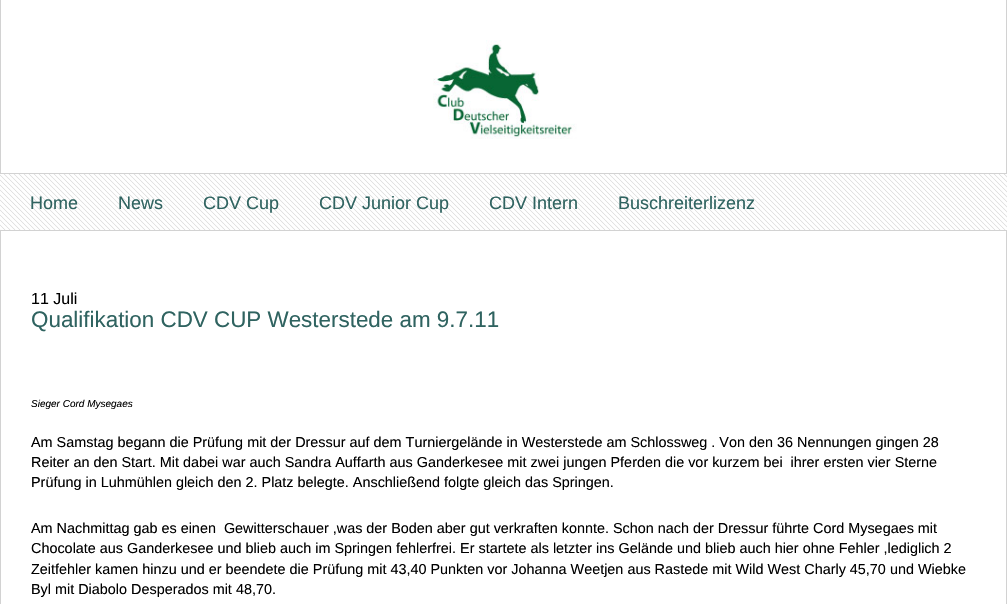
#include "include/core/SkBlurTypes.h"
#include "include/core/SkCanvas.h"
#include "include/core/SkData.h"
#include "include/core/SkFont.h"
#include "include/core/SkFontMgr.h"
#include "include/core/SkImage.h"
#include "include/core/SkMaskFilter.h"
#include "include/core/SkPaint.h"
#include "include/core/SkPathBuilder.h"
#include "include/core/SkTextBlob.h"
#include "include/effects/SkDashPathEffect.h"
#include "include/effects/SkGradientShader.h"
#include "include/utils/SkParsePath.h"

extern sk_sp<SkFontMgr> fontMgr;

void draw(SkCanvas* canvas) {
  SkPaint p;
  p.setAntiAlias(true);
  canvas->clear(SK_ColorWHITE);
  canvas->drawImageRect(SkImages::DeferredFromEncodedData(SkData::MakeFromFileName("images/1.png")), SkRect::MakeLTRB(0, 174, 1007, 230), SkSamplingOptions());
  p.setColor(SkColorSetRGB(210, 210, 210));
  canvas->drawRect(SkRect::MakeLTRB(1006, 0, 1007, 174), p);
  canvas->drawRect(SkRect::MakeLTRB(0, 173, 1007, 174), p);
  canvas->drawRect(SkRect::MakeLTRB(0, 0, 1, 174), p);
  canvas->drawImageRect(SkImages::DeferredFromEncodedData(SkData::MakeFromFileName("images/2.png")), SkRect::MakeLTRB(433, 40, 577, 139), SkSamplingOptions());
  canvas->drawRect(SkRect::MakeLTRB(0, 230, 1007, 231), p);
  canvas->drawRect(SkRect::MakeLTRB(1006, 230, 1007, 604), p);
  canvas->drawRect(SkRect::MakeLTRB(0, 230, 1, 604), p);
  SkFont font1(fontMgr->matchFamilyStyle("Liberation Sans", SkFontStyle::Normal()), 18);
  font1.setSubpixel(true);
  p.setColor(SkColorSetRGB(47, 99, 96));
  canvas->drawString("Home", 30, 209, font1, p);
  canvas->drawString("News", 118, 209, font1, p);
  canvas->drawString("CDV Cup", 203, 209, font1, p);
  canvas->drawString("CDV Junior Cup", 319, 209, font1, p);
  canvas->drawString("CDV Intern", 489, 209, font1, p);
  canvas->drawString("Buschreiterlizenz", 618, 209, font1, p);
  SkFont font2(fontMgr->matchFamilyStyle("Liberation Sans", SkFontStyle::Normal()), 16);
  font2.setSubpixel(true);
  p.setColor(SK_ColorBLACK);
  canvas->drawString("11 Juli", 31, 304, font2, p);
  SkFont font3(fontMgr->matchFamilyStyle("Liberation Sans", SkFontStyle::Normal()), 22.4f);
  font3.setSubpixel(true);
  p.setColor(SkColorSetRGB(47, 99, 96));
  canvas->drawString("Qualifikation CDV CUP Westerstede am 9.7.11", 31, 327, font3, p);
  SkFont font4(fontMgr->matchFamilyStyle("Liberation Sans", SkFontStyle::Italic()), 10);
  font4.setSubpixel(true);
  p.setColor(SK_ColorBLACK);
  canvas->drawString("Sieger Cord Mysegaes", 31, 407, font4, p);
  SkFont font5(fontMgr->matchFamilyStyle("Liberation Sans", SkFontStyle::Normal()), 14.4f);
  font5.setSubpixel(true);
  canvas->drawString("Am Samstag begann die Prüfung mit der Dressur auf dem Turniergelände in Westerstede am Schlossweg . Von den 36 Nennungen gingen 28", 31, 447, font5, p);
  canvas->drawString("Reiter an den Start. Mit dabei war auch Sandra Auffarth aus Ganderkesee mit zwei jungen Pferden die vor kurzem bei  ihrer ersten vier Sterne", 31, 467, font5, p);
  canvas->drawString("Prüfung in Luhmühlen gleich den 2. Platz belegte. Anschließend folgte gleich das Springen.", 31, 487, font5, p);
  canvas->drawString("Am Nachmittag gab es einen  Gewitterschauer ,was der Boden aber gut verkraften konnte. Schon nach der Dressur führte Cord Mysegaes mit", 31, 533, font5, p);
  canvas->drawString("Chocolate aus Ganderkesee und blieb auch im Springen fehlerfrei. Er startete als letzter ins Gelände und blieb auch hier ohne Fehler ,lediglich 2", 31, 553, font5, p);
  canvas->drawString("Zeitfehler kamen hinzu und er beendete die Prüfung mit 43,40 Punkten vor Johanna Weetjen aus Rastede mit Wild West Charly 45,70 und Wiebke", 31, 574, font5, p);
  canvas->drawString("Byl mit Diabolo Desperados mit 48,70.", 31, 594, font5, p);
}
